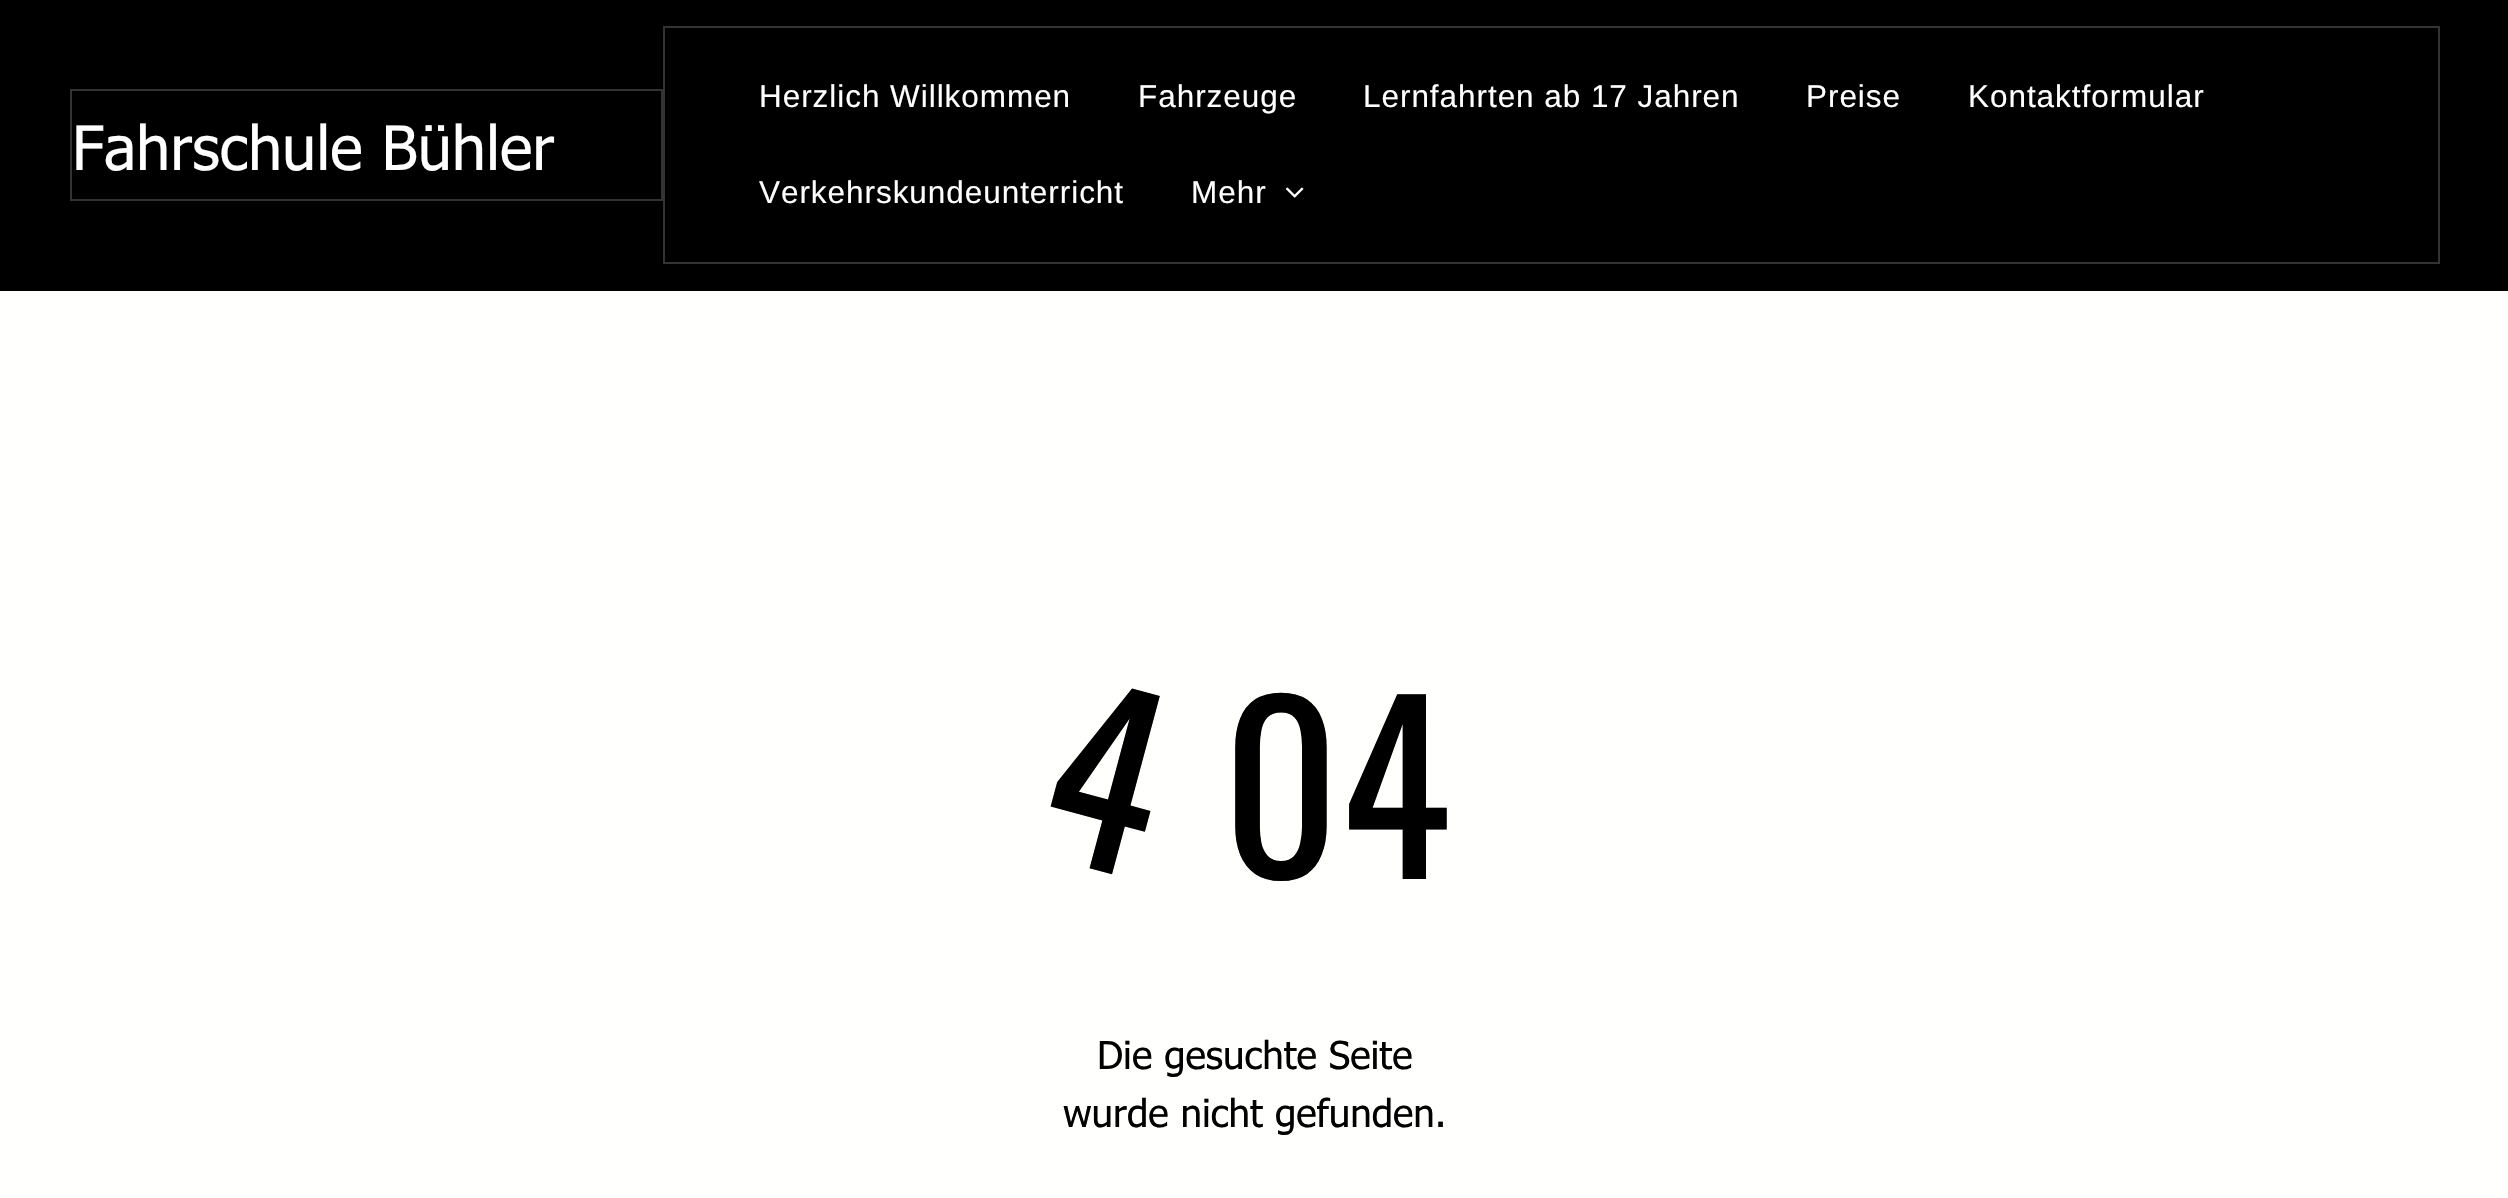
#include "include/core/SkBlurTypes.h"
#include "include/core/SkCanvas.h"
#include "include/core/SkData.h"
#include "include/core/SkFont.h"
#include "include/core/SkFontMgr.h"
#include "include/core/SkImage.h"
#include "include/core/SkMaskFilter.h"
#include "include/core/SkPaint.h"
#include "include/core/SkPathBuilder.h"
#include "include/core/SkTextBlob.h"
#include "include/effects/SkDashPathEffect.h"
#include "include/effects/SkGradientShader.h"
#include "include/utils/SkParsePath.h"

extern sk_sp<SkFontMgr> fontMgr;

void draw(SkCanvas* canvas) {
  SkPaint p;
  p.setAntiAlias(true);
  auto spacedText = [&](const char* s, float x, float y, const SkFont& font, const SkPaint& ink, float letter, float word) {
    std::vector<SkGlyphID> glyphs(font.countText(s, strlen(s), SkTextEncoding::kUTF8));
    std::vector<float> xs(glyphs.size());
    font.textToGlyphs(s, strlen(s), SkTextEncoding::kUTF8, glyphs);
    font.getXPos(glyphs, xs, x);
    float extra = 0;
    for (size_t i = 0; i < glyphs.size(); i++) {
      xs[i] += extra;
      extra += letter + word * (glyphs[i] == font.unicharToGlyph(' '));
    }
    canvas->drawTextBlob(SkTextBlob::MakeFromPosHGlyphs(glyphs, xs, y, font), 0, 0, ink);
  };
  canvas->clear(SkColorSetRGB(255, 255, 254));
  p.setColor(SK_ColorBLACK);
  canvas->drawRect(SkRect::MakeLTRB(0, 0, 2508, 291), p);
  p.setStyle(SkPaint::kStroke_Style);
  p.setStrokeWidth(2);
  p.setColor(SkColorSetRGB(51, 51, 51));
  canvas->drawRect(SkRect::MakeLTRB(71, 90, 662, 200), p);
  canvas->drawRect(SkRect::MakeLTRB(664, 27, 2439, 263), p);
  canvas->drawImageRect(SkImages::DeferredFromEncodedData(SkData::MakeFromFileName("images/1.png")), SkRect::MakeLTRB(1285, 187, 1304, 198), SkSamplingOptions());
  SkFont font1(fontMgr->matchFamilyStyle("Tahoma", SkFontStyle::Normal()), 61.25f);
  font1.setSubpixel(true);
  p.setStyle(SkPaint::kFill_Style);
  p.setColor(SK_ColorWHITE);
  canvas->drawString("Fahrschule Bühler", 72, 170, font1, p);
  SkFont font2(fontMgr->matchFamilyStyle("Liberation Sans", SkFontStyle::Normal()), 31.5f);
  font2.setSubpixel(true);
  spacedText("Herzlich Willkommen", 759, 107, font2, p, 0.95f, 0);
  spacedText("Fahrzeuge", 1138, 107, font2, p, 0.95f, 0);
  spacedText("Lernfahrten ab 17 Jahren", 1363, 107, font2, p, 0.95f, 0);
  spacedText("Preise", 1806, 107, font2, p, 0.95f, 0);
  spacedText("Kontaktformular", 1968, 107, font2, p, 0.95f, 0);
  spacedText("Verkehrskundeunterricht", 759, 203, font2, p, 0.95f, 0);
  spacedText("Mehr", 1191, 203, font2, p, 0.95f, 0);
  SkFont font3(fontMgr->matchFamilyStyle("Oswald", SkFontStyle::Normal()), 228);
  font3.setSubpixel(true);
  p.setColor(SK_ColorBLACK);
  canvas->save();
  canvas->rotate(15, 1029, 852);
  canvas->drawString("4", 1029, 852, font3, p);
  canvas->restore();
  canvas->drawString("04", 1222, 879, font3, p);
  SkFont font4(fontMgr->matchFamilyStyle("Tahoma", SkFontStyle::Normal()), 38.5f);
  font4.setSubpixel(true);
  canvas->drawString("Die gesuchte Seite", 1097, 1069, font4, p);
  canvas->drawString("wurde nicht gefunden.", 1063, 1127, font4, p);
}
